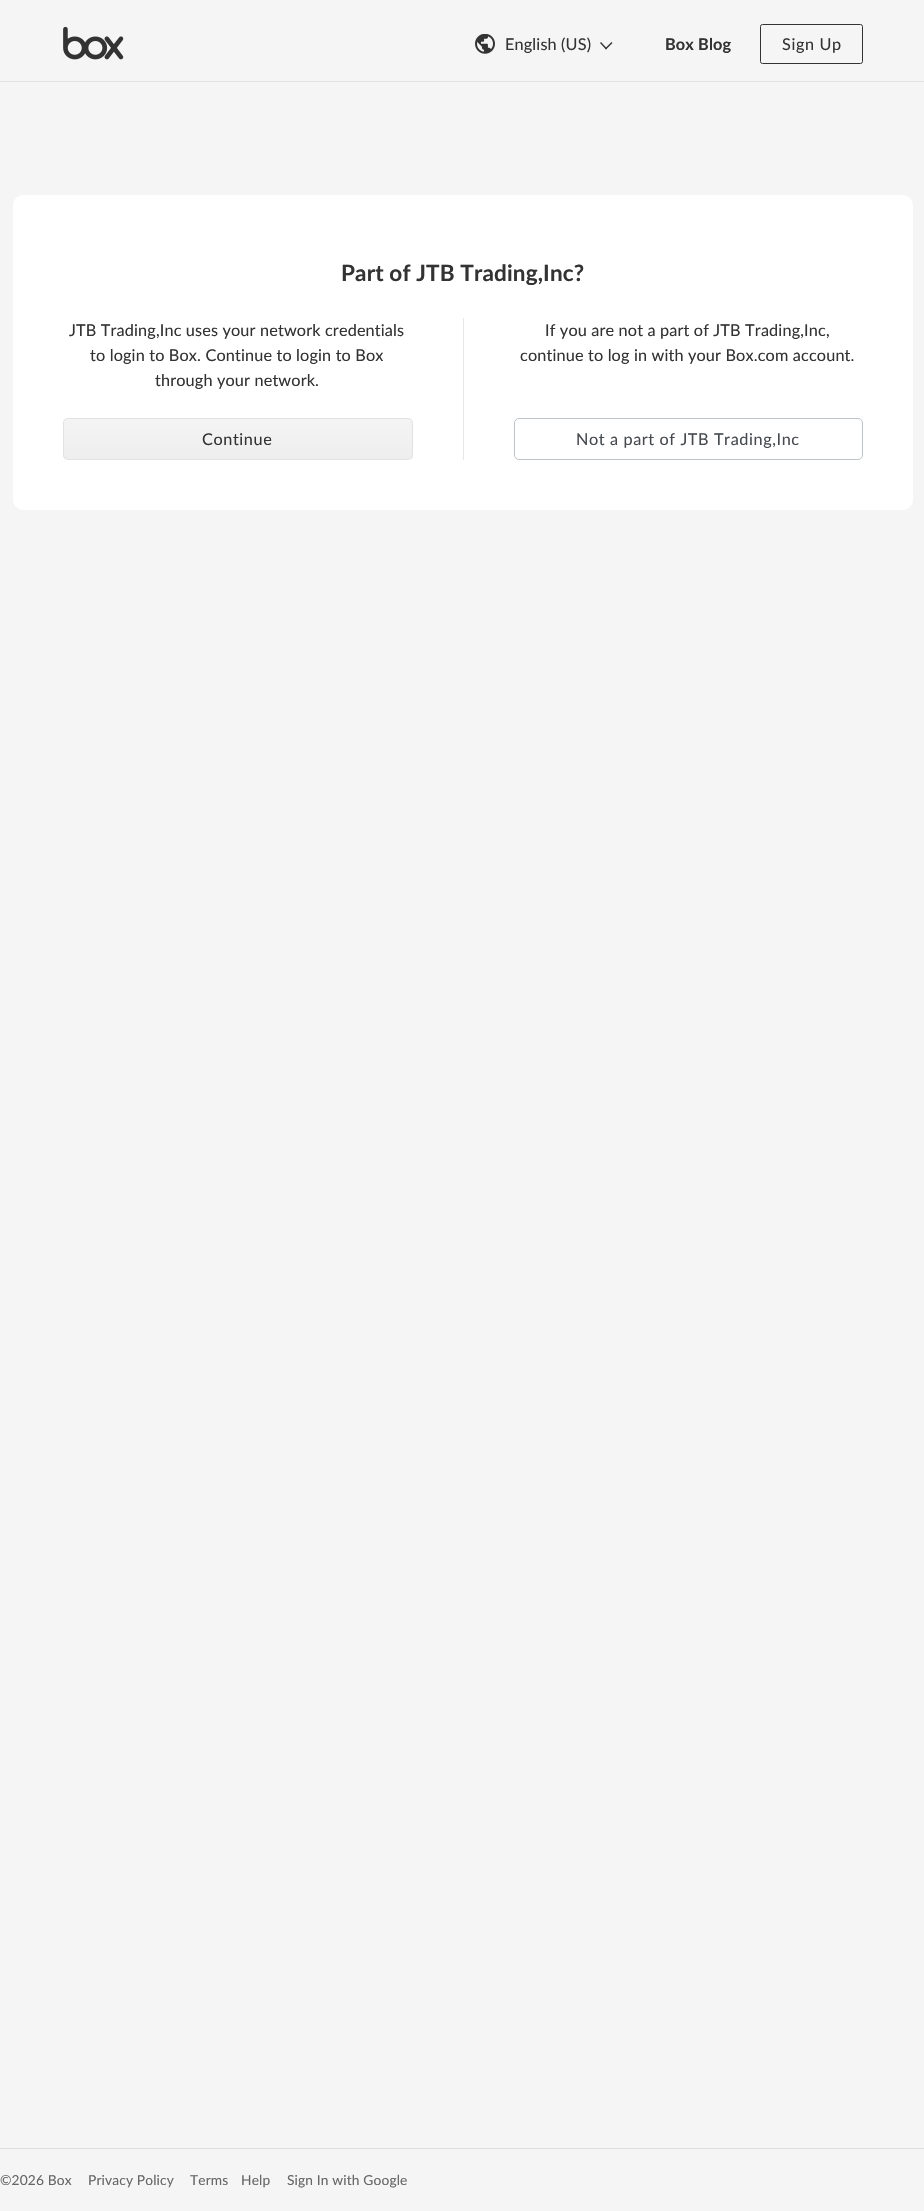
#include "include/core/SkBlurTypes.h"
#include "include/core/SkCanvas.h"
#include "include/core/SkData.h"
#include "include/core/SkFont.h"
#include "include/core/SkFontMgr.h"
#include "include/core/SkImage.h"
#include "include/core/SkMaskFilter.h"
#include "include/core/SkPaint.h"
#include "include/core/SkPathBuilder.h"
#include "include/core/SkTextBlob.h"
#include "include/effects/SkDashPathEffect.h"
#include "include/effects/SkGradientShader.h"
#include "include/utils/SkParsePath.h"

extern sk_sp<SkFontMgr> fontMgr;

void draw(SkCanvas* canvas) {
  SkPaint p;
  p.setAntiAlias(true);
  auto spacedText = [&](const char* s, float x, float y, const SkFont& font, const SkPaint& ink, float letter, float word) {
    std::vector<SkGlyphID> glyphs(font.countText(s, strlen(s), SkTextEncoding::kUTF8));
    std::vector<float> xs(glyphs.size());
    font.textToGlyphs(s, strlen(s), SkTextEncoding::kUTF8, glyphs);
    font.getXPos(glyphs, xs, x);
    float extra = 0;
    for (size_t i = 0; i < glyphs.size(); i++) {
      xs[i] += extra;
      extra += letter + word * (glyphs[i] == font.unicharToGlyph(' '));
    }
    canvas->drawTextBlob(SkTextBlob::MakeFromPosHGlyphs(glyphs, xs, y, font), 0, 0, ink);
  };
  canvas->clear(SkColorSetRGB(245, 245, 245));
  p.setColor(SkColorSetRGB(226, 226, 226));
  canvas->drawRect(SkRect::MakeLTRB(0, 81, 924, 82), p);
  canvas->drawImageRect(SkImages::DeferredFromEncodedData(SkData::MakeFromFileName("images/1.png")), SkRect::MakeLTRB(63, 26, 124, 60), SkSamplingOptions());
  canvas->drawImageRect(SkImages::DeferredFromEncodedData(SkData::MakeFromFileName("images/2.png")), SkRect::MakeLTRB(475, 34, 495, 54), SkSamplingOptions());
  p.setColor(SkColorSetRGB(51, 51, 51));
  canvas->drawPath(SkPathBuilder().moveTo(611.5f, 42).lineTo(612.5f, 43).lineTo(606, 49.5f).lineTo(605, 48.5f).close().detach(), p);
  canvas->drawPath(SkPathBuilder().moveTo(601, 42).lineTo(607, 48.5f).lineTo(606, 49.5f).lineTo(600, 43).close().detach(), p);
  p.setStyle(SkPaint::kStroke_Style);
  p.setStrokeWidth(1);
  canvas->drawRoundRect(SkRect::MakeLTRB(760.5f, 24.5f, 862.5f, 63.5f), 2, 2, p);
  p.setStyle(SkPaint::kFill_Style);
  p.setColor(SK_ColorWHITE);
  canvas->drawRoundRect(SkRect::MakeLTRB(13, 195, 913, 510), 10, 10, p);
  canvas->save();
  canvas->clipPath(SkPathBuilder().moveTo(68, 418).lineTo(408, 418).cubicTo(411, 418, 413, 420, 413, 423).lineTo(413, 455).cubicTo(413, 458, 411, 460, 408, 460).lineTo(68, 460).cubicTo(65, 460, 63, 458, 63, 455).lineTo(63, 423).cubicTo(63, 420, 65, 418, 68, 418).close().detach(), true);
  {
    const SkColor colors[] = {SkColorSetRGB(244, 244, 244), SkColorSetRGB(238, 238, 238)};
    const float stops[] = {0, 1};
    const SkPoint ends[] = {{238, 419}, {238, 459}};
    p.setShader(SkGradientShader::MakeLinear(ends, colors, stops, 2, SkTileMode::kClamp));
    p.setAlpha(255);
  }
  canvas->drawRect(SkRect::MakeLTRB(63, 419, 413, 459), p);
  canvas->restore();
  p.setStyle(SkPaint::kStroke_Style);
  p.setShader(nullptr);
  p.setColor(SkColorSetRGB(226, 226, 226));
  canvas->drawRoundRect(SkRect::MakeLTRB(63.5f, 418.5f, 412.5f, 459.5f), 4.5f, 4.5f, p);
  p.setStyle(SkPaint::kFill_Style);
  p.setColor(SkColorSetRGB(232, 232, 232));
  canvas->drawRect(SkRect::MakeLTRB(463, 318, 464, 460), p);
  p.setStyle(SkPaint::kStroke_Style);
  p.setColor(SkColorSetRGB(189, 195, 199));
  canvas->drawRoundRect(SkRect::MakeLTRB(514.5f, 418.5f, 862.5f, 459.5f), 4.5f, 4.5f, p);
  p.setStyle(SkPaint::kFill_Style);
  p.setColor(SkColorSetRGB(221, 221, 221));
  canvas->drawRect(SkRect::MakeLTRB(0, 2148, 924, 2149), p);
  SkFont font1(fontMgr->matchFamilyStyle("Lato", SkFontStyle::Normal()), 16.25f);
  font1.setSubpixel(true);
  p.setColor(SkColorSetRGB(51, 51, 51));
  spacedText("English (US)", 505, 50, font1, p, 0.15f, 0);
  SkFont font2(fontMgr->matchFamilyStyle("Lato", SkFontStyle::Bold()), 16.25f);
  font2.setSubpixel(true);
  spacedText("Box Blog", 665, 50, font2, p, 0.15f, 0);
  spacedText("Sign Up", 782, 50, font1, p, 0.6f, 0);
  SkFont font3(fontMgr->matchFamilyStyle("Lato", SkFontStyle::Bold()), 22.5f);
  font3.setSubpixel(true);
  spacedText("Part of JTB Trading,Inc?", 341, 281, font3, p, 0.15f, 0);
  spacedText("JTB Trading,Inc uses your network credentials", 69, 336, font1, p, 0.15f, 0);
  spacedText("to login to Box. Continue to login to Box", 90, 361, font1, p, 0.15f, 0);
  spacedText("through your network.", 155, 386, font1, p, 0.15f, 0);
  spacedText("Continue", 202, 445, font1, p, 0.6f, 0);
  spacedText("If you are not a part of JTB Trading,Inc,", 545, 336, font1, p, 0.15f, 0);
  spacedText("continue to log in with your Box.com account.", 520, 361, font1, p, 0.15f, 0);
  p.setColor(SkColorSetRGB(70, 74, 79));
  spacedText("Not a part of JTB Trading,Inc", 576, 445, font1, p, 0.6f, 0);
  SkFont font4(fontMgr->matchFamilyStyle("Lato", SkFontStyle::Normal()), 13.75f);
  font4.setSubpixel(true);
  p.setColor(SkColorSetRGB(102, 102, 102));
  spacedText("©2026 Box", 0, 2185, font4, p, 0.15f, 0);
  spacedText("Privacy Policy", 88, 2185, font4, p, 0.15f, 0);
  spacedText("Terms", 190, 2185, font4, p, 0.15f, 0);
  spacedText("Help", 241, 2185, font4, p, 0.15f, 0);
  spacedText("Sign In with Google", 287, 2185, font4, p, 0.15f, 0);
}
